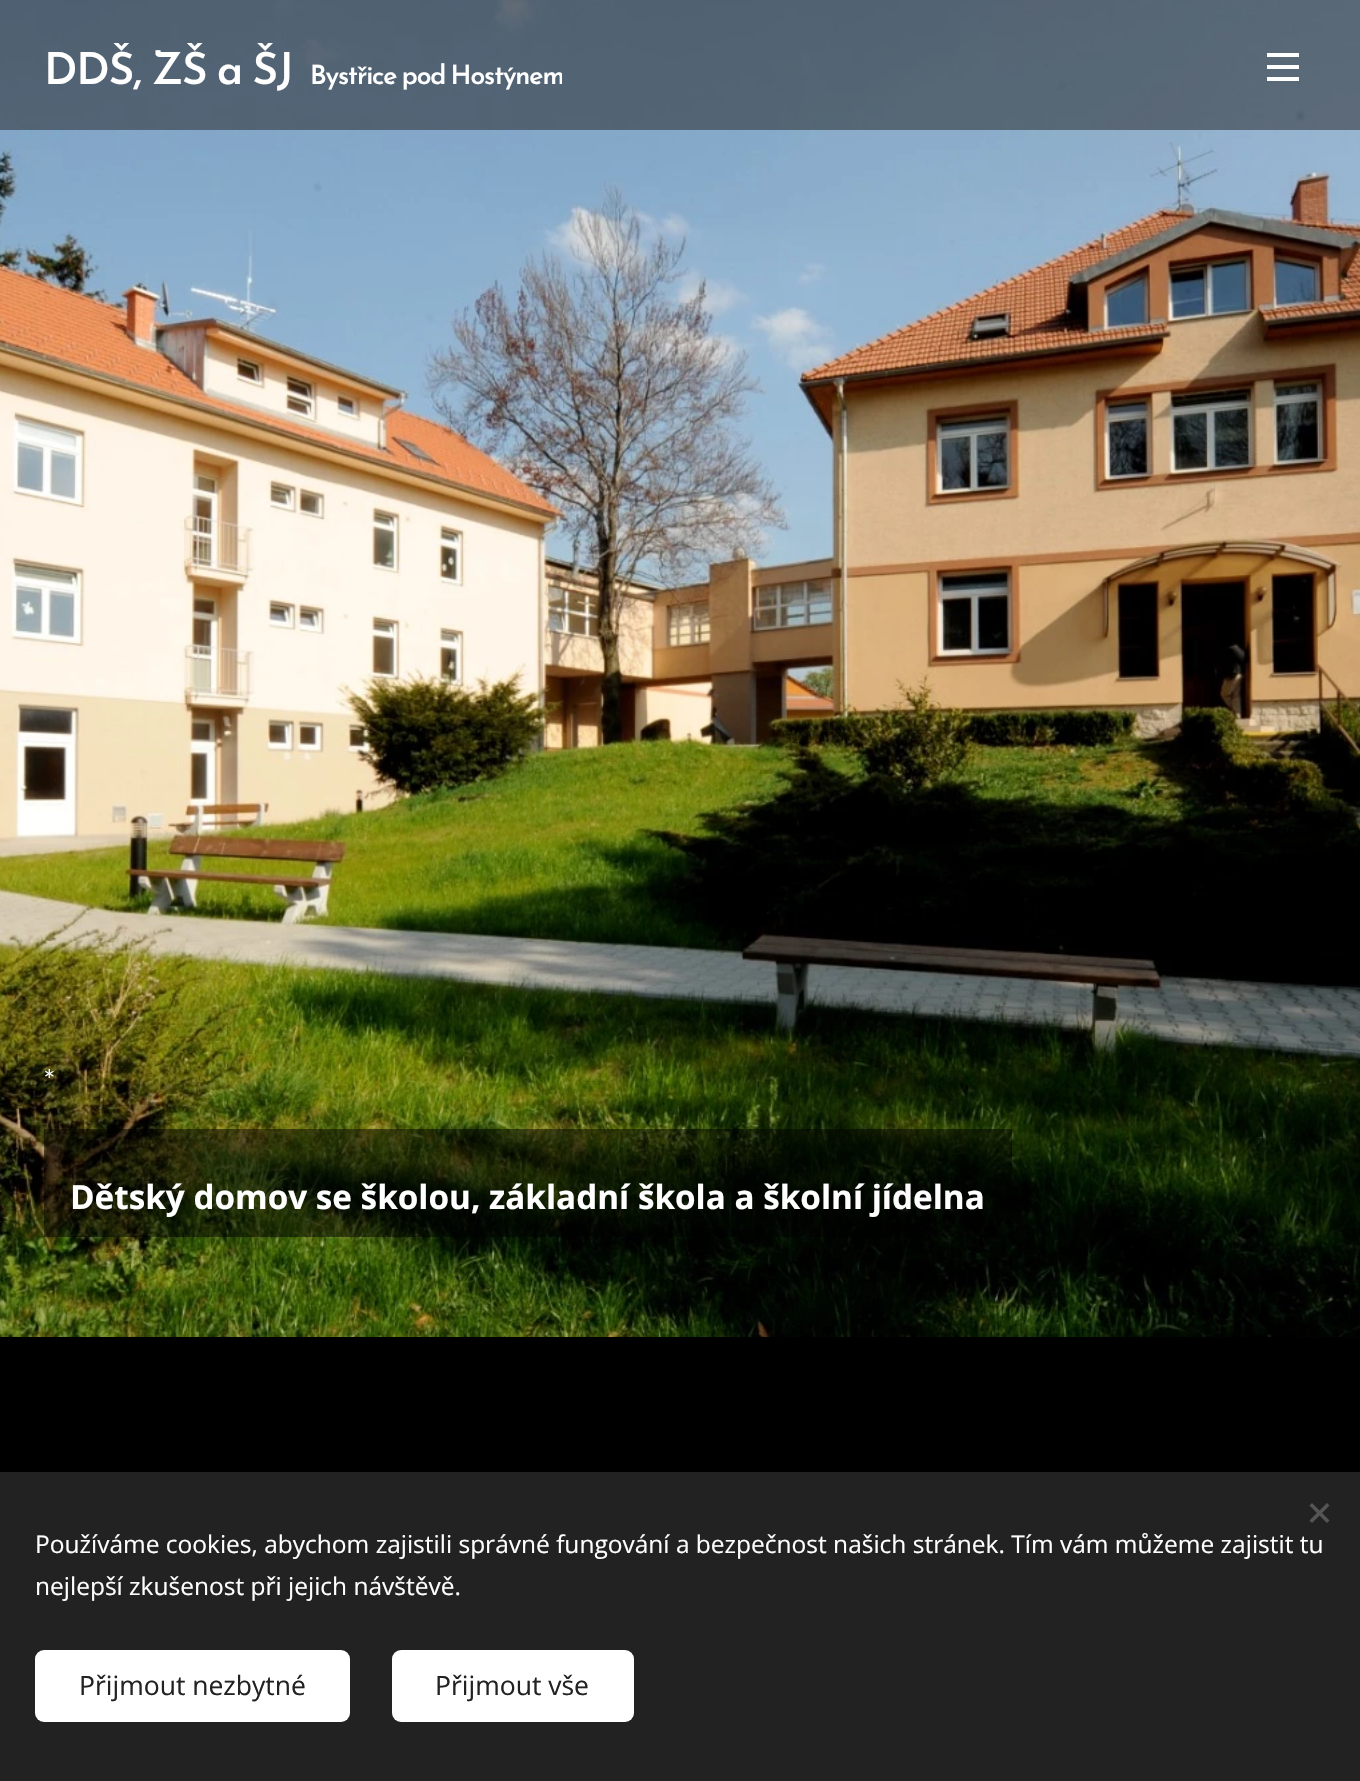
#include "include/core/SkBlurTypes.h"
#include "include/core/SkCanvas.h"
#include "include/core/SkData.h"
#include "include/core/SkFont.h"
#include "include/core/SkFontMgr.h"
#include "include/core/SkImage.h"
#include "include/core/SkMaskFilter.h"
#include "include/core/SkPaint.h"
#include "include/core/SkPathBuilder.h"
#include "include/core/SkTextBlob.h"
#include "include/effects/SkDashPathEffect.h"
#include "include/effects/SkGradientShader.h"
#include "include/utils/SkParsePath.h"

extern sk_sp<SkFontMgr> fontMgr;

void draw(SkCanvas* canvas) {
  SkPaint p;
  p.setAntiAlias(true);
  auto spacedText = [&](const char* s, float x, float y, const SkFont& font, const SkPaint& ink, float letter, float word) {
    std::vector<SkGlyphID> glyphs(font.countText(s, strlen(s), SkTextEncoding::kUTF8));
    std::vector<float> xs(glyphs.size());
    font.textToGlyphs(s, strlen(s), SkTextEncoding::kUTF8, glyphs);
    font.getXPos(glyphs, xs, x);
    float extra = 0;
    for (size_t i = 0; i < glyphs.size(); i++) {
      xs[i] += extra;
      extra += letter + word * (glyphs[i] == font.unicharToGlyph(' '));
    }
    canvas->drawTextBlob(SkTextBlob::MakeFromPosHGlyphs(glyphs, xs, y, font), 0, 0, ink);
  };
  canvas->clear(SK_ColorWHITE);
  canvas->drawImageRect(SkImages::DeferredFromEncodedData(SkData::MakeFromFileName("images/1.png")), SkRect::MakeLTRB(0, 0, 1360, 1337), SkSamplingOptions());
  p.setColor(SkColorSetARGB(128, 34, 34, 34));
  canvas->drawRect(SkRect::MakeLTRB(0, 0, 1360, 130), p);
  p.setColor(SK_ColorWHITE);
  canvas->drawRect(SkRect::MakeLTRB(1267, 65, 1299, 69), p);
  canvas->drawRect(SkRect::MakeLTRB(1267, 53, 1299, 57), p);
  canvas->drawRect(SkRect::MakeLTRB(1267, 77, 1299, 81), p);
  p.setColor(SkColorSetARGB(128, 0, 0, 0));
  canvas->drawRect(SkRect::MakeLTRB(44, 1129, 70, 1237), p);
  canvas->drawRect(SkRect::MakeLTRB(985, 1129, 1012, 1237), p);
  canvas->drawRect(SkRect::MakeLTRB(70, 1129, 985, 1237), p);
  p.setColor(SK_ColorBLACK);
  canvas->drawRect(SkRect::MakeLTRB(0, 1337, 1360, 1472), p);
  p.setColor(SkColorSetRGB(34, 34, 34));
  canvas->drawRect(SkRect::MakeLTRB(0, 1472, 1360, 1781), p);
  p.setColor(SkColorSetRGB(85, 85, 85));
  canvas->drawPath(SkPathBuilder().moveTo(1309.5f, 1520.5f).lineTo(1327, 1503).lineTo(1329.5f, 1505.5f).lineTo(1312, 1523).close().detach(), p);
  canvas->drawPath(SkPathBuilder().moveTo(1312, 1503).lineTo(1329.5f, 1520.5f).lineTo(1327, 1523).lineTo(1309.5f, 1505.5f).close().detach(), p);
  p.setColor(SK_ColorWHITE);
  canvas->drawRoundRect(SkRect::MakeLTRB(35, 1650, 350, 1722), 9, 9, p);
  canvas->drawRoundRect(SkRect::MakeLTRB(392, 1650, 634, 1722), 9, 9, p);
  SkFont font1(fontMgr->matchFamilyStyle("Josefin Sans", SkFontStyle(600, SkFontStyle::kNormal_Width, SkFontStyle::kUpright_Slant)), 44);
  font1.setSubpixel(true);
  spacedText("DDŠ, ZŠ a ŠJ", 44, 84, font1, p, -1.1f, -2.5f);
  canvas->save();
  canvas->clipRect(SkRect::MakeLTRB(37, 37, 562, 93));
  SkFont font2(fontMgr->matchFamilyStyle("Josefin Sans", SkFontStyle(600, SkFontStyle::kNormal_Width, SkFontStyle::kUpright_Slant)), 26.5f);
  font2.setSubpixel(true);
  spacedText("Bystřice pod Hostýnem", 310, 84, font2, p, -1.1f, -2);
  canvas->restore();
  SkFont font3(fontMgr->matchFamilyStyle("Josefin Sans", SkFontStyle(300, SkFontStyle::kNormal_Width, SkFontStyle::kUpright_Slant)), 32);
  font3.setSubpixel(true);
  spacedText("*", 44, 1092, font3, p, -1, 0);
  SkFont font4(fontMgr->matchFamilyStyle("Open Sans", SkFontStyle::Bold()), 33.25f);
  font4.setSubpixel(true);
  canvas->drawString("Dětský domov se školou, základní škola a školní jídelna", 70, 1209, font4, p);
  SkFont font5(fontMgr->matchFamilyStyle("Open Sans", SkFontStyle::Normal()), 24.5f);
  font5.setSubpixel(true);
  canvas->drawString("Používáme cookies, abychom zajistili správné fungování a bezpečnost našich stránek. Tím vám můžeme zajistit tu", 35, 1553, font5, p);
  canvas->drawString("nejlepší zkušenost při jejich návštěvě.", 35, 1595, font5, p);
  SkFont font6(fontMgr->matchFamilyStyle("Open Sans", SkFontStyle::Normal()), 26.5f);
  font6.setSubpixel(true);
  p.setColor(SkColorSetRGB(34, 34, 34));
  canvas->drawString("Přijmout nezbytné", 79, 1695, font6, p);
  canvas->drawString("Přijmout vše", 435, 1695, font6, p);
}
